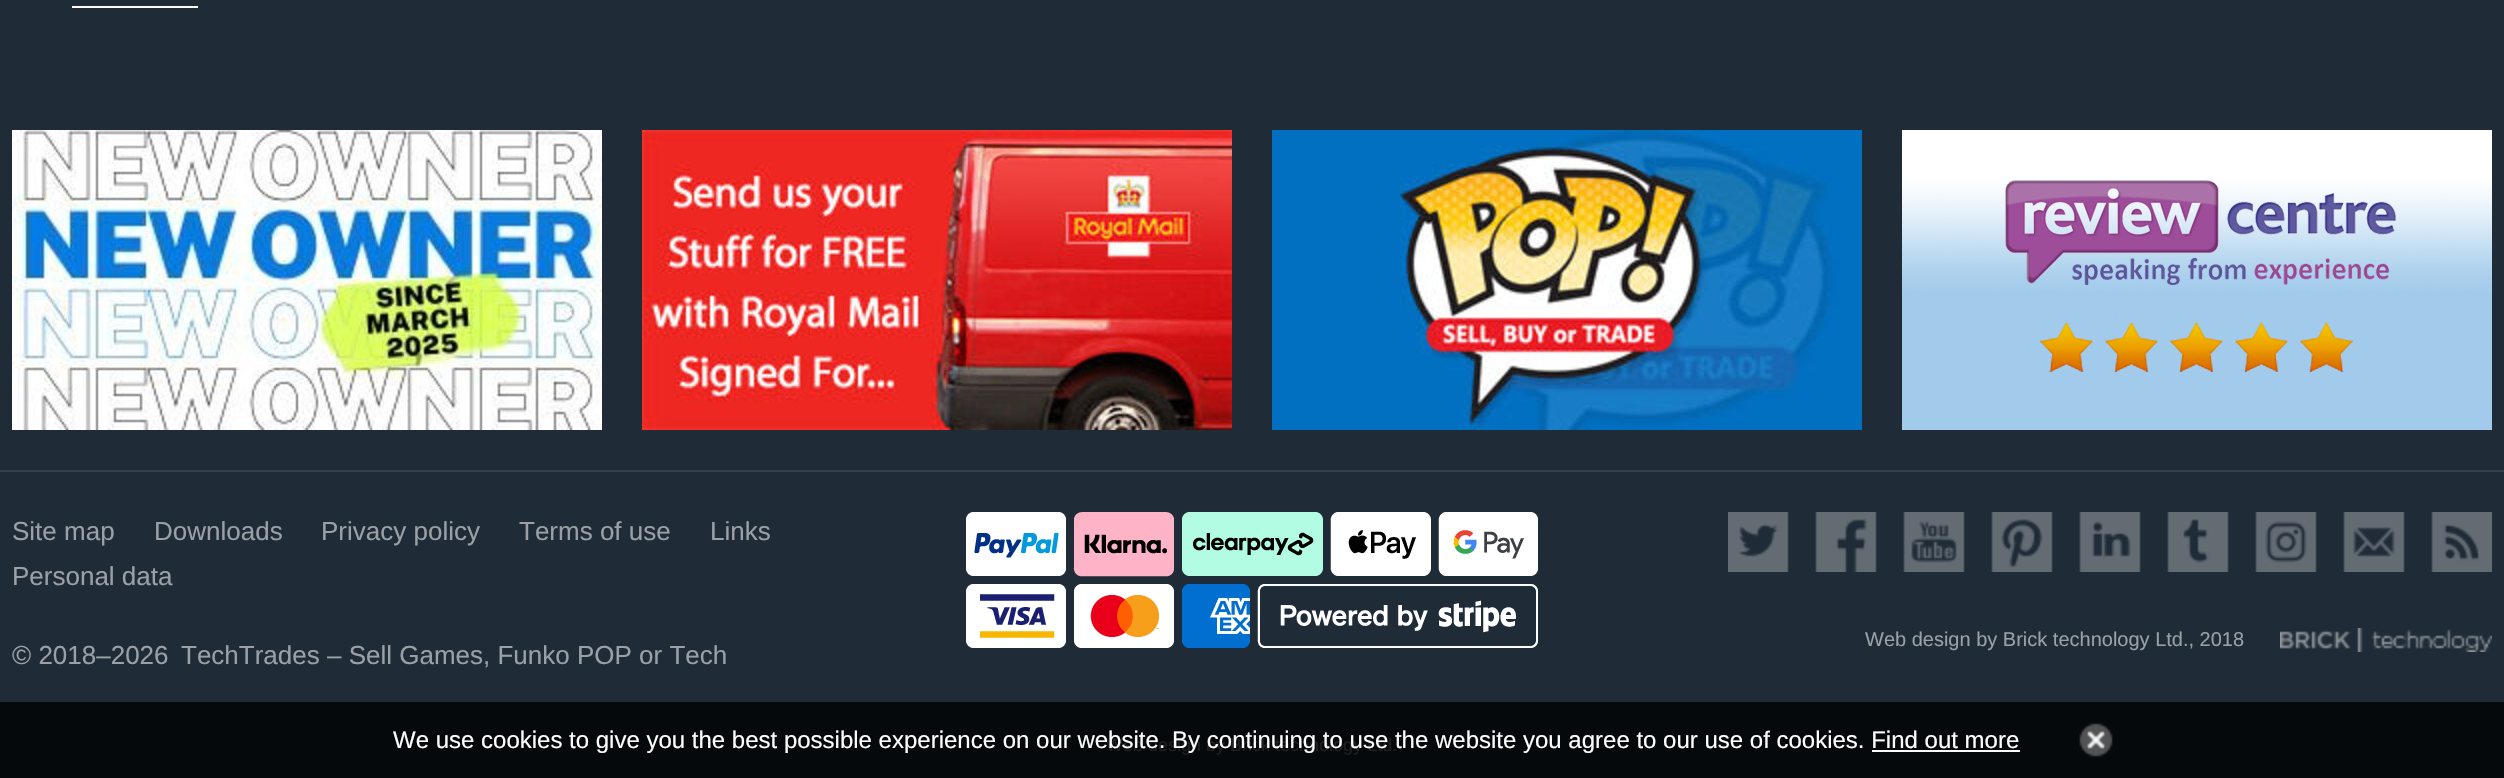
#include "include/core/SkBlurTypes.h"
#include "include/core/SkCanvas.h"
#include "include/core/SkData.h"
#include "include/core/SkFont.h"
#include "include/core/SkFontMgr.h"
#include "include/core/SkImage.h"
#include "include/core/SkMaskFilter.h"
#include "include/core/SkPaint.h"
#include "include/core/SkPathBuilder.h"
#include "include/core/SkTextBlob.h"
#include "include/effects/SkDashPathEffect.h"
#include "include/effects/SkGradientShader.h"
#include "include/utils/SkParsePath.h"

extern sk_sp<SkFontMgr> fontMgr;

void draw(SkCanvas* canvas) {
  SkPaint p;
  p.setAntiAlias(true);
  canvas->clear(SkColorSetRGB(31, 43, 54));
  p.setColor(SkColorSetRGB(6, 9, 11));
  canvas->drawRect(SkRect::MakeLTRB(0, 702, 2504, 778), p);
  p.setColor(SK_ColorWHITE);
  canvas->drawRect(SkRect::MakeLTRB(72, 6, 198, 8), p);
  canvas->drawImageRect(SkImages::DeferredFromEncodedData(SkData::MakeFromFileName("images/1.png")), SkRect::MakeLTRB(12, 130, 602, 430), SkSamplingOptions());
  canvas->drawImageRect(SkImages::DeferredFromEncodedData(SkData::MakeFromFileName("images/2.png")), SkRect::MakeLTRB(642, 130, 1232, 430), SkSamplingOptions());
  canvas->drawImageRect(SkImages::DeferredFromEncodedData(SkData::MakeFromFileName("images/3.png")), SkRect::MakeLTRB(1272, 130, 1862, 430), SkSamplingOptions());
  canvas->drawImageRect(SkImages::DeferredFromEncodedData(SkData::MakeFromFileName("images/4.png")), SkRect::MakeLTRB(1902, 130, 2492, 430), SkSamplingOptions());
  p.setColor(SkColorSetRGB(53, 64, 74));
  canvas->drawRect(SkRect::MakeLTRB(0, 470, 2504, 472), p);
  canvas->drawImageRect(SkImages::DeferredFromEncodedData(SkData::MakeFromFileName("images/5.png")), SkRect::MakeLTRB(966, 512, 1538, 648), SkSamplingOptions());
  canvas->drawImageRect(SkImages::DeferredFromEncodedData(SkData::MakeFromFileName("images/6.png")), SkRect::MakeLTRB(1728, 512, 1789, 572), SkSamplingOptions());
  canvas->drawImageRect(SkImages::DeferredFromEncodedData(SkData::MakeFromFileName("images/7.png")), SkRect::MakeLTRB(1815, 512, 1877, 572), SkSamplingOptions());
  canvas->drawImageRect(SkImages::DeferredFromEncodedData(SkData::MakeFromFileName("images/8.png")), SkRect::MakeLTRB(1903, 512, 1965, 572), SkSamplingOptions());
  canvas->drawImageRect(SkImages::DeferredFromEncodedData(SkData::MakeFromFileName("images/9.png")), SkRect::MakeLTRB(1991, 512, 2053, 572), SkSamplingOptions());
  canvas->drawImageRect(SkImages::DeferredFromEncodedData(SkData::MakeFromFileName("images/10.png")), SkRect::MakeLTRB(2079, 512, 2141, 572), SkSamplingOptions());
  canvas->drawImageRect(SkImages::DeferredFromEncodedData(SkData::MakeFromFileName("images/11.png")), SkRect::MakeLTRB(2167, 512, 2229, 572), SkSamplingOptions());
  canvas->drawImageRect(SkImages::DeferredFromEncodedData(SkData::MakeFromFileName("images/12.png")), SkRect::MakeLTRB(2255, 512, 2317, 572), SkSamplingOptions());
  canvas->drawImageRect(SkImages::DeferredFromEncodedData(SkData::MakeFromFileName("images/13.png")), SkRect::MakeLTRB(2343, 512, 2405, 572), SkSamplingOptions());
  canvas->drawImageRect(SkImages::DeferredFromEncodedData(SkData::MakeFromFileName("images/14.png")), SkRect::MakeLTRB(2431, 512, 2492, 572), SkSamplingOptions());
  canvas->drawImageRect(SkImages::DeferredFromEncodedData(SkData::MakeFromFileName("images/15.png")), SkRect::MakeLTRB(2280, 628, 2492, 652), SkSamplingOptions());
  p.setColor(SK_ColorWHITE);
  canvas->drawRect(SkRect::MakeLTRB(1872, 750, 2020, 752), p);
  canvas->drawImageRect(SkImages::DeferredFromEncodedData(SkData::MakeFromFileName("images/16.png")), SkRect::MakeLTRB(2079, 723, 2113, 757), SkSamplingOptions());
  SkFont font1(fontMgr->matchFamilyStyle("Liberation Sans", SkFontStyle::Normal()), 26);
  font1.setSubpixel(true);
  p.setColor(SkColorSetRGB(154, 160, 165));
  canvas->drawString("Site map", 12, 540, font1, p);
  canvas->drawString("Downloads", 154, 540, font1, p);
  canvas->drawString("Privacy policy", 321, 540, font1, p);
  canvas->drawString("Terms of use", 519, 540, font1, p);
  canvas->drawString("Links", 710, 540, font1, p);
  canvas->drawString("Personal data", 12, 585, font1, p);
  canvas->drawString("© 2018–2026", 12, 664, font1, p);
  canvas->drawString("TechTrades – Sell Games, Funko POP or Tech", 181, 664, font1, p);
  SkFont font2(fontMgr->matchFamilyStyle("Liberation Sans", SkFontStyle::Normal()), 20);
  font2.setSubpixel(true);
  canvas->drawString("Web design by Brick technology Ltd., 2018", 1865, 646, font2, p);
  SkFont font3(fontMgr->matchFamilyStyle("Liberation Sans", SkFontStyle::Normal()), 18);
  font3.setSubpixel(true);
  p.setColor(SkColorSetRGB(31, 32, 33));
  canvas->drawString("Web design by Brick technology Ltd.", 1106, 751, font3, p);
  SkFont font4(fontMgr->matchFamilyStyle("Liberation Sans", SkFontStyle::Normal()), 24);
  font4.setSubpixel(true);
  p.setColor(SK_ColorWHITE);
  canvas->drawString("We use cookies to give you the best possible experience on our website. By continuing to use the website you agree to our use of cookies. Find out more", 393, 748, font4, p);
}
